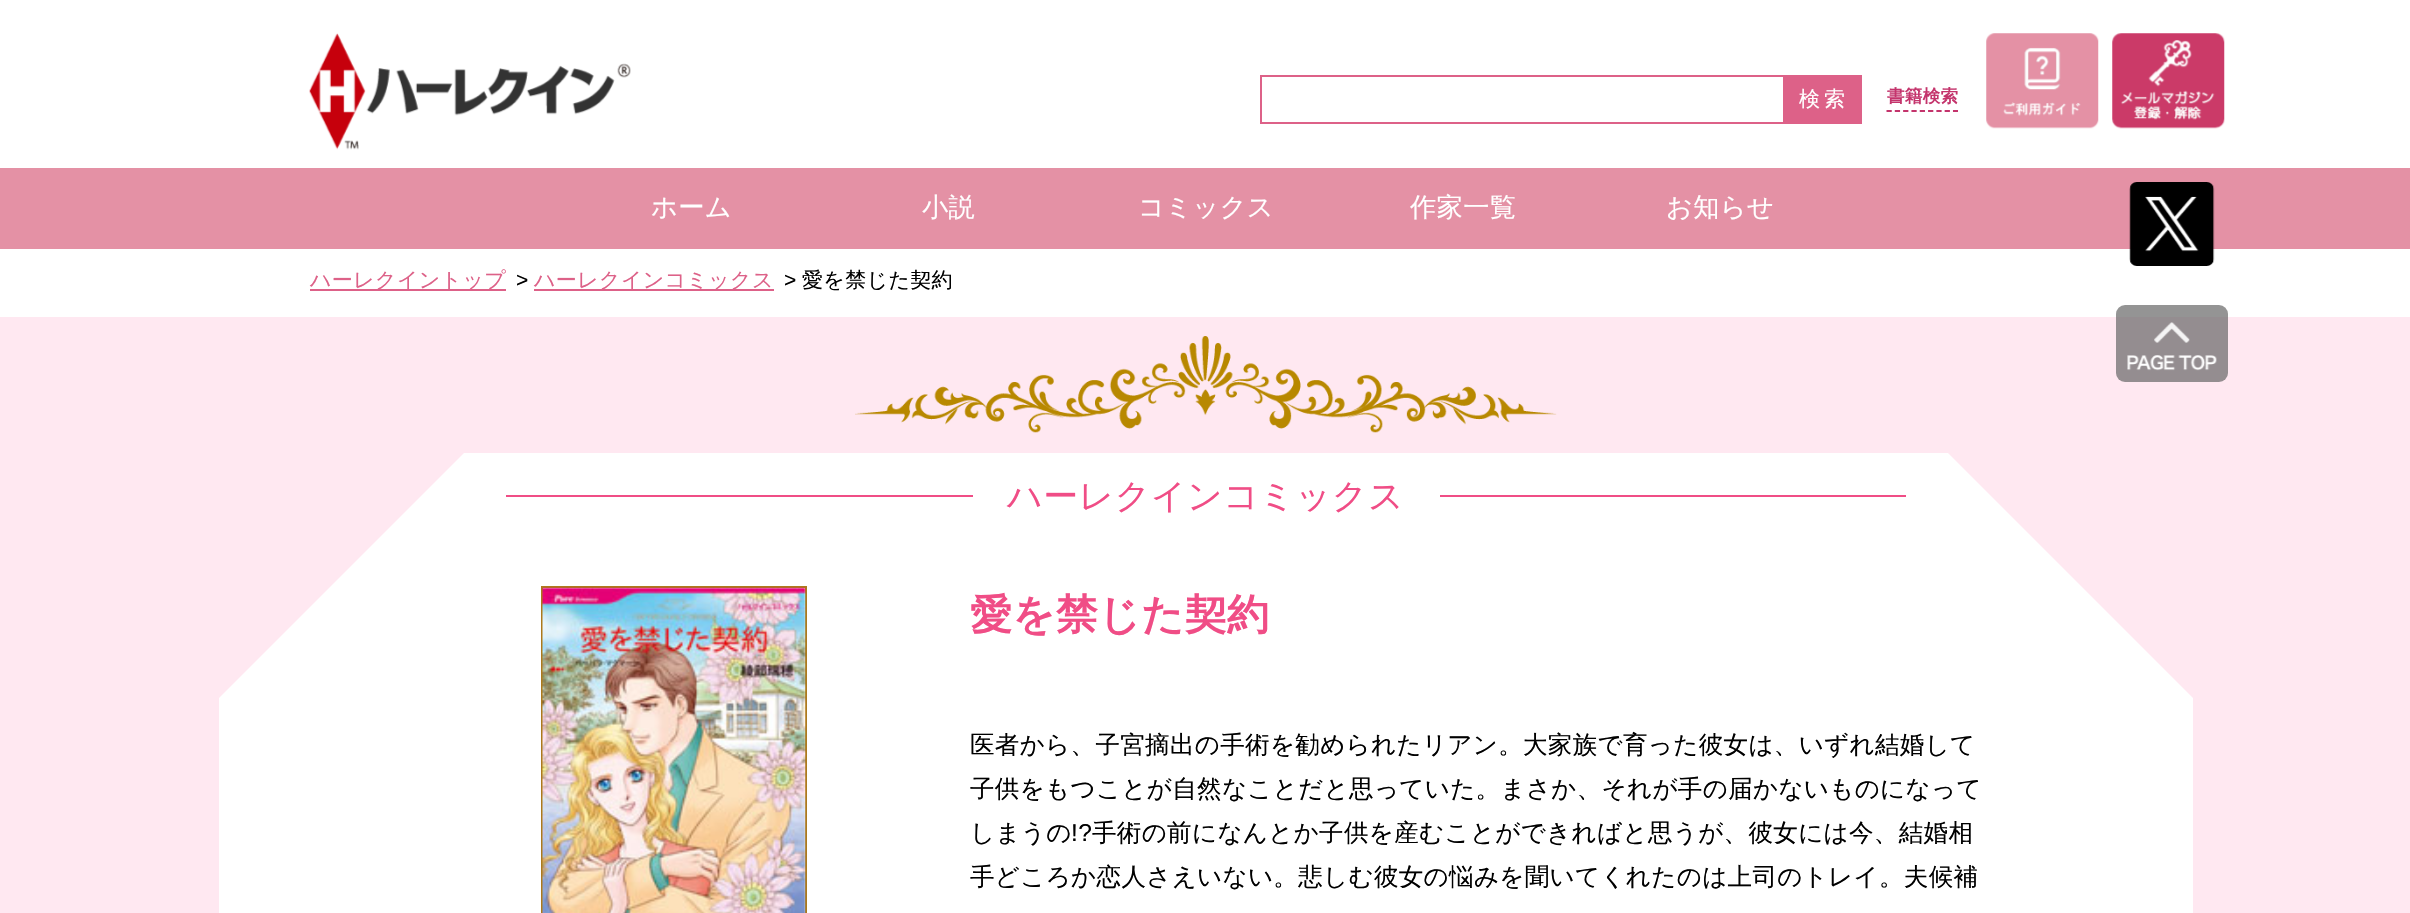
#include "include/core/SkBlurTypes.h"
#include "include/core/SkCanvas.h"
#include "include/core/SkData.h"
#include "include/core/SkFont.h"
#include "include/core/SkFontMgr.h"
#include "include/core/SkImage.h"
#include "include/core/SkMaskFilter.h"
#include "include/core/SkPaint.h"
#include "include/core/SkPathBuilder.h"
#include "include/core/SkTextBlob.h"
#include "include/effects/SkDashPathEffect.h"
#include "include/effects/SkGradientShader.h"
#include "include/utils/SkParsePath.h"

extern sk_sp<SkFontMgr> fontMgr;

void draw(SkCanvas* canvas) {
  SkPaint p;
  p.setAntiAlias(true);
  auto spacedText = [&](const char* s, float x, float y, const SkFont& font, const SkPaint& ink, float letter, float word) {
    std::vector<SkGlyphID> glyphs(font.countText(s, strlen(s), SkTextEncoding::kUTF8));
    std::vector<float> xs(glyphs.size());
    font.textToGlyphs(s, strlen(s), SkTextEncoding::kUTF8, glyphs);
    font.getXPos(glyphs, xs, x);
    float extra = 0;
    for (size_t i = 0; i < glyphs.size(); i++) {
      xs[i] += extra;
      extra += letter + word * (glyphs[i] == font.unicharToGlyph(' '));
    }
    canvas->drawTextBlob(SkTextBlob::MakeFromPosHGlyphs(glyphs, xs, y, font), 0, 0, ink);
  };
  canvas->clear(SK_ColorWHITE);
  canvas->drawImageRect(SkImages::DeferredFromEncodedData(SkData::MakeFromFileName("images/1.png")), SkRect::MakeLTRB(309, 33, 631, 150), SkSamplingOptions());
  p.setStyle(SkPaint::kStroke_Style);
  p.setStrokeWidth(2);
  p.setColor(SkColorSetRGB(221, 97, 136));
  canvas->drawRect(SkRect::MakeLTRB(1261, 76, 1784, 123), p);
  p.setStyle(SkPaint::kFill_Style);
  canvas->drawRect(SkRect::MakeLTRB(1785, 75, 1862, 124), p);
  p.setStyle(SkPaint::kStroke_Style);
  p.setStrokeWidth(1.8f);
  p.setColor(SkColorSetRGB(196, 52, 108));
  p.setPathEffect(SkDashPathEffect::Make({{5.25f, 3.06f}}, 0));
  canvas->drawPath(SkPathBuilder().moveTo(1886.5f, 111).lineTo(1958, 111).detach(), p);
  p.setPathEffect(nullptr);
  canvas->drawImageRect(SkImages::DeferredFromEncodedData(SkData::MakeFromFileName("images/2.png")), SkRect::MakeLTRB(1986, 33, 2099, 129), SkSamplingOptions());
  canvas->drawImageRect(SkImages::DeferredFromEncodedData(SkData::MakeFromFileName("images/3.png")), SkRect::MakeLTRB(2112, 33, 2225, 129), SkSamplingOptions());
  p.setStyle(SkPaint::kFill_Style);
  p.setColor(SkColorSetRGB(228, 145, 165));
  canvas->drawRect(SkRect::MakeLTRB(0, 168, 2410, 249), p);
  canvas->drawImageRect(SkImages::DeferredFromEncodedData(SkData::MakeFromFileName("images/4.png")), SkRect::MakeLTRB(2129, 182, 2215, 266), SkSamplingOptions());
  p.setColor(SkColorSetRGB(255, 232, 241));
  canvas->drawRect(SkRect::MakeLTRB(0, 317, 2410, 913), p);
  p.setColor(SkColorSetARGB(179, 102, 102, 102));
  canvas->drawRoundRect(SkRect::MakeLTRB(2116, 305, 2228, 382), 9, 9, p);
  canvas->drawImageRect(SkImages::DeferredFromEncodedData(SkData::MakeFromFileName("images/5.png")), SkRect::MakeLTRB(2127, 322, 2217, 371), SkSamplingOptions());
  p.setColor(SkColorSetRGB(221, 97, 136));
  canvas->drawRect(SkRect::MakeLTRB(310, 289, 506, 291), p);
  canvas->drawRect(SkRect::MakeLTRB(534, 289, 774, 291), p);
  canvas->drawImageRect(SkImages::DeferredFromEncodedData(SkData::MakeFromFileName("images/6.png")), SkRect::MakeLTRB(855, 336, 1557, 433), SkSamplingOptions());
  p.setColor(SK_ColorWHITE);
  canvas->drawRect(SkRect::MakeLTRB(219, 453, 2193, 913), p);
  p.setColor(SkColorSetRGB(240, 77, 134));
  canvas->drawRect(SkRect::MakeLTRB(506, 495, 1906, 497), p);
  p.setColor(SK_ColorWHITE);
  canvas->drawRect(SkRect::MakeLTRB(973, 495, 1440, 497), p);
  p.setColor(SkColorSetRGB(255, 232, 241));
  canvas->drawPath(SkPathBuilder().moveTo(219, 453).lineTo(464, 453).lineTo(219, 698).close().detach(), p);
  p.setStyle(SkPaint::kStroke_Style);
  p.setStrokeWidth(2);
  p.setColor(SkColorSetRGB(173, 121, 27));
  canvas->drawRect(SkRect::MakeLTRB(542, 587, 806, 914), p);
  canvas->drawImageRect(SkImages::DeferredFromEncodedData(SkData::MakeFromFileName("images/7.png")), SkRect::MakeLTRB(542, 587, 806, 913), SkSamplingOptions());
  p.setStyle(SkPaint::kFill_Style);
  p.setColor(SkColorSetRGB(255, 232, 241));
  canvas->drawPath(SkPathBuilder().moveTo(2193, 453).lineTo(2193, 698).lineTo(1948, 453).close().detach(), p);
  SkFont font1(fontMgr->matchFamilyStyle("WenQuanYi Zen Hei", SkFontStyle(500, SkFontStyle::kNormal_Width, SkFontStyle::kUpright_Slant)), 21);
  font1.setSubpixel(true);
  p.setColor(SK_ColorWHITE);
  spacedText("検索", 1799, 106, font1, p, 4, 0);
  SkFont font2(fontMgr->matchFamilyStyle("WenQuanYi Zen Hei", SkFontStyle::Bold()), 17.5f);
  font2.setSubpixel(true);
  p.setColor(SkColorSetRGB(196, 52, 108));
  spacedText("書籍検索", 1887, 102, font2, p, 0.35f, 0);
  SkFont font3(fontMgr->matchFamilyStyle("WenQuanYi Zen Hei", SkFontStyle(500, SkFontStyle::kNormal_Width, SkFontStyle::kUpright_Slant)), 26.25f);
  font3.setSubpixel(true);
  p.setColor(SK_ColorWHITE);
  spacedText("ホーム", 651, 216, font3, p, 0.35f, 0);
  spacedText("小説", 922, 216, font3, p, 0.35f, 0);
  spacedText("コミックス", 1138, 216, font3, p, 0.35f, 0);
  spacedText("作家一覧", 1410, 216, font3, p, 0.35f, 0);
  spacedText("お知らせ", 1666, 216, font3, p, 0.35f, 0);
  p.setColor(SkColorSetRGB(221, 97, 136));
  spacedText("ハーレクイントップ", 310, 287, font1, p, 0.35f, 0);
  SkFont font4(fontMgr->matchFamilyStyle("Liberation Sans", SkFontStyle::Normal()), 21);
  font4.setSubpixel(true);
  p.setColor(SK_ColorBLACK);
  spacedText(">", 516, 287, font4, p, 0.35f, 0);
  p.setColor(SkColorSetRGB(221, 97, 136));
  spacedText("ハーレクインコミックス", 534, 287, font1, p, 0.35f, 0);
  p.setColor(SK_ColorBLACK);
  spacedText(">", 784, 287, font4, p, 0.35f, 0);
  spacedText("愛を禁じた契約", 802, 287, font1, p, 0.35f, 0);
  SkFont font5(fontMgr->matchFamilyStyle("WenQuanYi Zen Hei", SkFontStyle(500, SkFontStyle::kNormal_Width, SkFontStyle::kUpright_Slant)), 35);
  font5.setSubpixel(true);
  p.setColor(SkColorSetRGB(240, 77, 134));
  spacedText("ハーレクインコミックス", 1007, 508, font5, p, 0.35f, 0);
  SkFont font6(fontMgr->matchFamilyStyle("WenQuanYi Zen Hei", SkFontStyle::Bold()), 42);
  font6.setSubpixel(true);
  spacedText("愛を禁じた契約", 970, 629, font6, p, 0.35f, 0);
  SkFont font7(fontMgr->matchFamilyStyle("WenQuanYi Zen Hei", SkFontStyle(500, SkFontStyle::kNormal_Width, SkFontStyle::kUpright_Slant)), 24.5f);
  font7.setSubpixel(true);
  p.setColor(SK_ColorBLACK);
  spacedText("医者から、子宮摘出の手術を勧められたリアン。大家族で育った彼女は、いずれ結婚して", 970, 753, font7, p, 0.35f, 0);
  spacedText("子供をもつことが自然なことだと思っていた。まさか、それが手の届かないものになって", 970, 797, font7, p, 0.35f, 0);
  spacedText("しまうの", 970, 841, font7, p, 0.35f, 0);
  SkFont font8(fontMgr->matchFamilyStyle("Liberation Sans", SkFontStyle::Normal()), 24.5f);
  font8.setSubpixel(true);
  spacedText("!?", 1071, 841, font8, p, 0.35f, 0);
  spacedText("手術の前になんとか子供を産むことができればと思うが、彼女には今、結婚相", 1092, 841, font7, p, 0.35f, 0);
  spacedText("手どころか恋人さえいない。悲しむ彼女の悩みを聞いてくれたのは上司のトレイ。夫候補", 970, 885, font7, p, 0.35f, 0);
}
